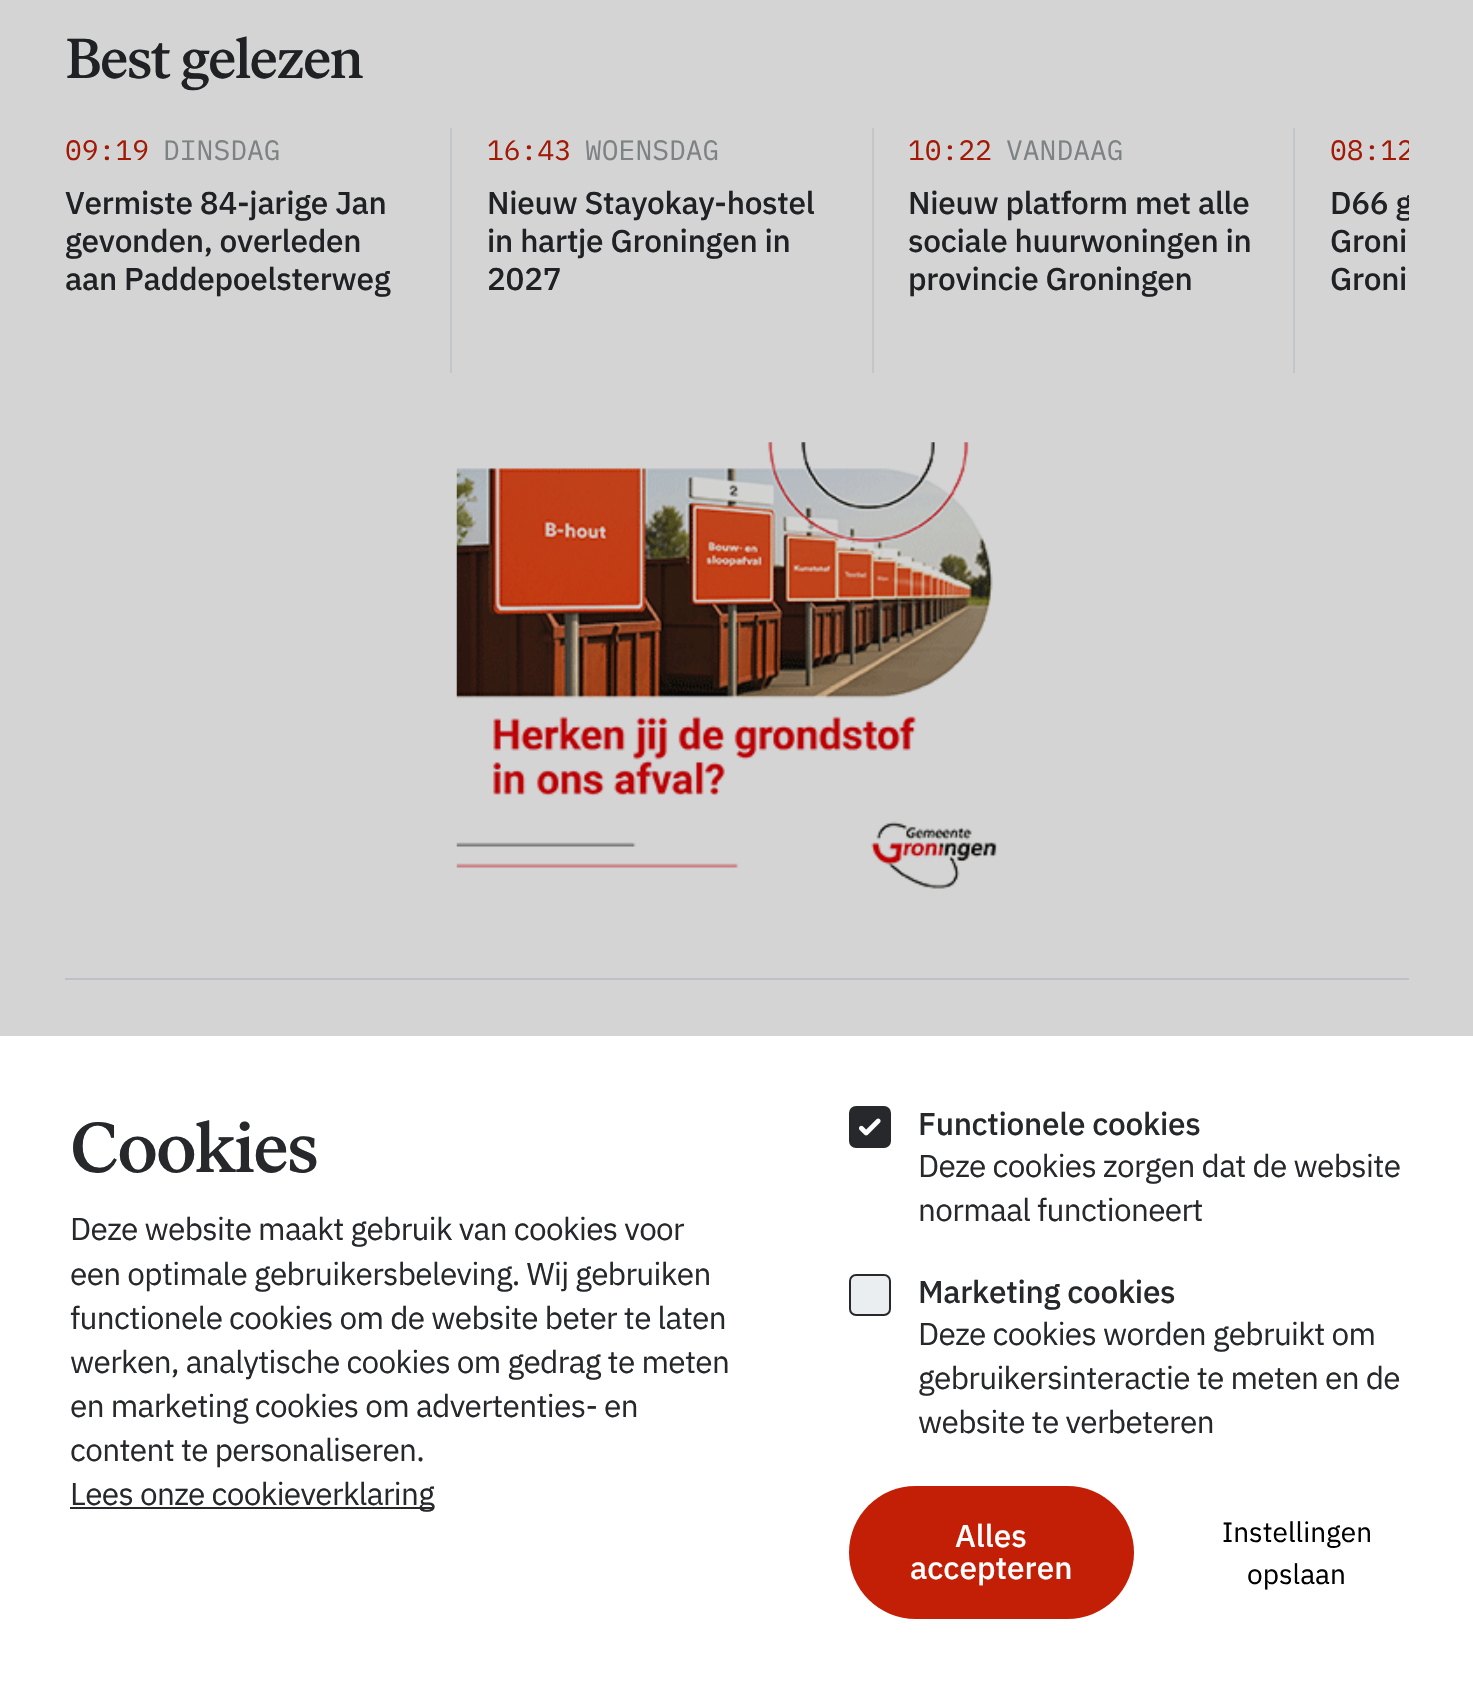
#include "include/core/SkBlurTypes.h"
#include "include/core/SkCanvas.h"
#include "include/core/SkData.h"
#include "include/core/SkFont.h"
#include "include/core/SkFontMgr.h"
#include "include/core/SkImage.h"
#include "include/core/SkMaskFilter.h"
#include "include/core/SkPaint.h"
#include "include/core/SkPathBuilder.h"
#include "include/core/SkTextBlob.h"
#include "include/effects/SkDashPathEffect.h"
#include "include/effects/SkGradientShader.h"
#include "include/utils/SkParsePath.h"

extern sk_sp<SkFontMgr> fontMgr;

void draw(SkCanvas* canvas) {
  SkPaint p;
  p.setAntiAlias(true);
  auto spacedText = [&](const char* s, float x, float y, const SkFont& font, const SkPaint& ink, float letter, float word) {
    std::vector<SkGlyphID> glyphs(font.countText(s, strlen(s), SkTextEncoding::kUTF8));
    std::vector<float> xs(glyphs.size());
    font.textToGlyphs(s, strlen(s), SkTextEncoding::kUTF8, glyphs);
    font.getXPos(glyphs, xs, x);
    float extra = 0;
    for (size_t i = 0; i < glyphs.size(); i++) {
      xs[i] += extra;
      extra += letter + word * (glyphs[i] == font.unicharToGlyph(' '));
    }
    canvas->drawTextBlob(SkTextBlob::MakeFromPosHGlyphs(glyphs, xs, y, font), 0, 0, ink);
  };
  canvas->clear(SkColorSetRGB(212, 212, 212));
  p.setColor(SkColorSetRGB(194, 198, 200));
  canvas->drawRect(SkRect::MakeLTRB(450, 128, 452, 373), p);
  canvas->drawRect(SkRect::MakeLTRB(872, 128, 874, 373), p);
  canvas->drawRect(SkRect::MakeLTRB(1293, 128, 1295, 373), p);
  canvas->drawImageRect(SkImages::DeferredFromEncodedData(SkData::MakeFromFileName("images/1.png")), SkRect::MakeLTRB(456, 442, 997, 889), SkSamplingOptions());
  p.setColor(SkColorSetRGB(190, 192, 195));
  canvas->drawRect(SkRect::MakeLTRB(65, 978, 1409, 980), p);
  p.setColor(SK_ColorWHITE);
  canvas->drawRect(SkRect::MakeLTRB(0, 1036, 1473, 1688), p);
  p.setColor(SkColorSetRGB(38, 40, 43));
  canvas->drawRect(SkRect::MakeLTRB(70, 1507, 434, 1509), p);
  canvas->drawRoundRect(SkRect::MakeLTRB(849, 1106, 891, 1148), 7, 7, p);
  canvas->drawImageRect(SkImages::DeferredFromEncodedData(SkData::MakeFromFileName("images/2.png")), SkRect::MakeLTRB(859, 1118, 881, 1136), SkSamplingOptions());
  p.setColor(SkColorSetRGB(234, 238, 241));
  canvas->drawRoundRect(SkRect::MakeLTRB(850, 1275, 890, 1315), 6, 6, p);
  p.setStyle(SkPaint::kStroke_Style);
  p.setStrokeWidth(2);
  p.setColor(SkColorSetRGB(38, 40, 43));
  canvas->drawRoundRect(SkRect::MakeLTRB(850, 1275, 890, 1315), 6, 6, p);
  p.setStyle(SkPaint::kFill_Style);
  p.setColor(SkColorSetRGB(195, 31, 7));
  canvas->drawRoundRect(SkRect::MakeLTRB(849, 1486, 1134, 1619), 66.5f, 66.5f, p);
  SkFont font1(fontMgr->matchFamilyStyle("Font", SkFontStyle(500, SkFontStyle::kNormal_Width, SkFontStyle::kUpright_Slant)), 56);
  font1.setSubpixel(true);
  p.setColor(SkColorSetRGB(32, 33, 36));
  spacedText("Best gelezen", 65, 78, font1, p, -1.75f, 0);
  SkFont font2(fontMgr->matchFamilyStyle("IBM Plex Mono", SkFontStyle::Normal()), 28);
  font2.setSubpixel(true);
  p.setColor(SkColorSetRGB(162, 26, 6));
  canvas->drawString("09:19", 65, 160, font2, p);
  p.setColor(SkColorSetRGB(125, 131, 132));
  canvas->drawString("DINSDAG", 163, 160, font2, p);
  SkFont font3(fontMgr->matchFamilyStyle("IBM Plex Sans", SkFontStyle(500, SkFontStyle::kNormal_Width, SkFontStyle::kUpright_Slant)), 31.5f);
  font3.setSubpixel(true);
  p.setColor(SkColorSetRGB(32, 33, 36));
  spacedText("Vermiste 84-jarige Jan", 65, 214, font3, p, -0.3f, 0);
  spacedText("gevonden, overleden", 65, 252, font3, p, -0.3f, 0);
  spacedText("aan Paddepoelsterweg", 65, 290, font3, p, -0.3f, 0);
  p.setColor(SkColorSetRGB(162, 26, 6));
  canvas->drawString("16:43", 487, 160, font2, p);
  p.setColor(SkColorSetRGB(125, 131, 132));
  canvas->drawString("WOENSDAG", 585, 160, font2, p);
  p.setColor(SkColorSetRGB(32, 33, 36));
  spacedText("Nieuw Stayokay-hostel", 487, 214, font3, p, -0.3f, 0);
  spacedText("in hartje Groningen in", 487, 252, font3, p, -0.3f, 0);
  spacedText("2027", 487, 290, font3, p, -0.3f, 0);
  p.setColor(SkColorSetRGB(162, 26, 6));
  canvas->drawString("10:22", 908, 160, font2, p);
  p.setColor(SkColorSetRGB(125, 131, 132));
  canvas->drawString("VANDAAG", 1006, 160, font2, p);
  p.setColor(SkColorSetRGB(32, 33, 36));
  spacedText("Nieuw platform met alle", 908, 214, font3, p, -0.3f, 0);
  spacedText("sociale huurwoningen in", 908, 252, font3, p, -0.3f, 0);
  spacedText("provincie Groningen", 908, 290, font3, p, -0.3f, 0);
  canvas->save();
  canvas->clipRect(SkRect::MakeLTRB(65, 128, 1409, 373));
  p.setColor(SkColorSetRGB(162, 26, 6));
  canvas->drawString("08:12", 1330, 160, font2, p);
  p.setColor(SkColorSetRGB(32, 33, 36));
  spacedText("D66 g", 1330, 214, font3, p, -0.3f, 0);
  canvas->restore();
  spacedText("Groni", 1330, 252, font3, p, -0.3f, 0);
  spacedText("Groni", 1330, 290, font3, p, -0.3f, 0);
  SkFont font4(fontMgr->matchFamilyStyle("Font", SkFontStyle(500, SkFontStyle::kNormal_Width, SkFontStyle::kUpright_Slant)), 70);
  font4.setSubpixel(true);
  p.setColor(SkColorSetRGB(38, 40, 43));
  spacedText("Cookies", 70, 1172, font4, p, -2, 0);
  SkFont font5(fontMgr->matchFamilyStyle("IBM Plex Sans", SkFontStyle::Normal()), 31.5f);
  font5.setSubpixel(true);
  spacedText("Deze website maakt gebruik van cookies voor", 70, 1240, font5, p, -0.65f, 0);
  spacedText("een optimale gebruikersbeleving. Wij gebruiken", 70, 1285, font5, p, -0.65f, 0);
  spacedText("functionele cookies om de website beter te laten", 70, 1329, font5, p, -0.65f, 0);
  spacedText("werken, analytische cookies om gedrag te meten", 70, 1373, font5, p, -0.65f, 0);
  spacedText("en marketing cookies om advertenties- en", 70, 1417, font5, p, -0.65f, 0);
  spacedText("content te personaliseren.", 70, 1461, font5, p, -0.65f, 0);
  spacedText("Lees onze cookieverklaring", 70, 1505, font5, p, -0.65f, 0);
  spacedText("Functionele cookies", 918, 1135, font3, p, -0.3f, 0);
  spacedText("Deze cookies zorgen dat de website", 918, 1177, font5, p, -0.65f, 0);
  spacedText("normaal functioneert", 918, 1221, font5, p, -0.65f, 0);
  spacedText("Marketing cookies", 918, 1303, font3, p, -0.3f, 0);
  spacedText("Deze cookies worden gebruikt om", 918, 1345, font5, p, -0.65f, 0);
  spacedText("gebruikersinteractie te meten en de", 918, 1389, font5, p, -0.65f, 0);
  spacedText("website te verbeteren", 918, 1433, font5, p, -0.65f, 0);
  p.setColor(SK_ColorWHITE);
  canvas->drawString("Alles", 955, 1547, font3, p);
  canvas->drawString("accepteren", 910, 1579, font3, p);
  SkFont font6(fontMgr->matchFamilyStyle("IBM Plex Sans", SkFontStyle::Normal()), 28);
  font6.setSubpixel(true);
  p.setColor(SK_ColorBLACK);
  canvas->drawString("Instellingen", 1222, 1542, font6, p);
  canvas->drawString("opslaan", 1247, 1584, font6, p);
}
